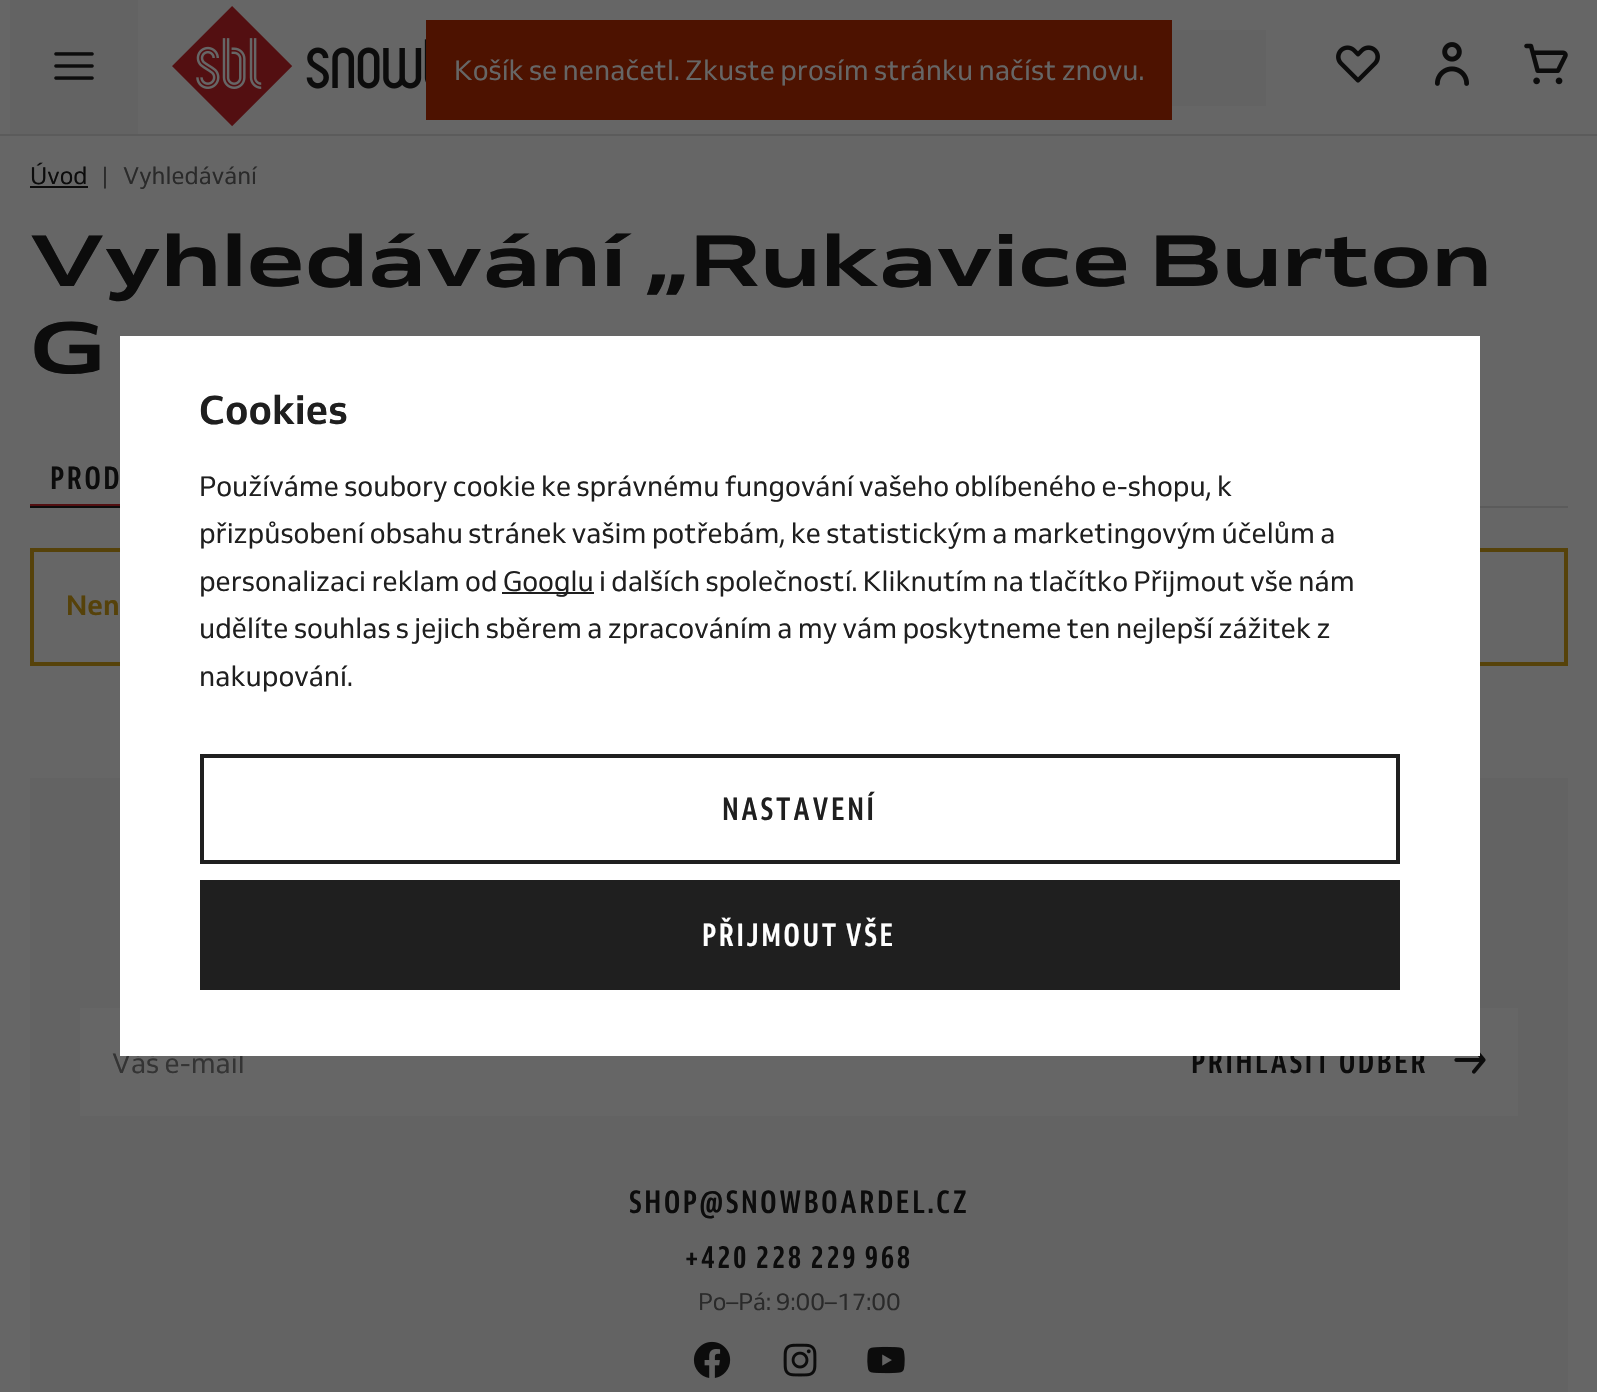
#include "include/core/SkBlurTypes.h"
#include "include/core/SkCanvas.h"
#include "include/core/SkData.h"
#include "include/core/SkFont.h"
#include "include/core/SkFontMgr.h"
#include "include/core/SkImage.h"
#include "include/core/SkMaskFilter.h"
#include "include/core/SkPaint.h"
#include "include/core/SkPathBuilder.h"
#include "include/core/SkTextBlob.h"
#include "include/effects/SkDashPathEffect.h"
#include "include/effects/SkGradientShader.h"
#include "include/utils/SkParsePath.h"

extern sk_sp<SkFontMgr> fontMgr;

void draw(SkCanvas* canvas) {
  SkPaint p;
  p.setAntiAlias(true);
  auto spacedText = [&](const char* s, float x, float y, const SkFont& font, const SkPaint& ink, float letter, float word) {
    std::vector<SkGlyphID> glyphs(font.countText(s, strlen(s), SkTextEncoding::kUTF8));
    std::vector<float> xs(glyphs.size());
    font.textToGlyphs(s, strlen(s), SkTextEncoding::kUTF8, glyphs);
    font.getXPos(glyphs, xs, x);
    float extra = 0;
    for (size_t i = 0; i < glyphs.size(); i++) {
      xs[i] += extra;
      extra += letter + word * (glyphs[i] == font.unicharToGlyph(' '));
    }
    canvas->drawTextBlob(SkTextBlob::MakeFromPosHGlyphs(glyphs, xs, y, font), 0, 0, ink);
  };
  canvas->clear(SkColorSetRGB(102, 102, 102));
  p.setColor(SkColorSetRGB(91, 91, 91));
  canvas->drawRect(SkRect::MakeLTRB(0, 134, 1597, 136), p);
  p.setColor(SkColorSetRGB(99, 99, 99));
  canvas->drawRect(SkRect::MakeLTRB(10, 0, 138, 134), p);
  canvas->drawImageRect(SkImages::DeferredFromEncodedData(SkData::MakeFromFileName("images/1.png")), SkRect::MakeLTRB(54, 52, 94, 80), SkSamplingOptions());
  canvas->drawImageRect(SkImages::DeferredFromEncodedData(SkData::MakeFromFileName("images/2.png")), SkRect::MakeLTRB(172, 6, 426, 127), SkSamplingOptions());
  canvas->drawRect(SkRect::MakeLTRB(1172, 30, 1266, 106), p);
  canvas->drawImageRect(SkImages::DeferredFromEncodedData(SkData::MakeFromFileName("images/3.png")), SkRect::MakeLTRB(1336, 45, 1380, 83), SkSamplingOptions());
  canvas->drawImageRect(SkImages::DeferredFromEncodedData(SkData::MakeFromFileName("images/4.png")), SkRect::MakeLTRB(1435, 42, 1469, 86), SkSamplingOptions());
  canvas->drawImageRect(SkImages::DeferredFromEncodedData(SkData::MakeFromFileName("images/5.png")), SkRect::MakeLTRB(1524, 43, 1568, 85), SkSamplingOptions());
  p.setColor(SkColorSetRGB(77, 18, 0));
  canvas->drawRect(SkRect::MakeLTRB(426, 20, 1172, 120), p);
  p.setColor(SkColorSetRGB(12, 12, 12));
  canvas->drawRect(SkRect::MakeLTRB(30, 186, 88, 188), p);
  canvas->drawRect(SkRect::MakeLTRB(30, 506, 120, 508), p);
  p.setColor(SkColorSetRGB(83, 15, 17));
  canvas->drawRect(SkRect::MakeLTRB(30, 504, 120, 506), p);
  p.setColor(SkColorSetRGB(91, 91, 91));
  canvas->drawRect(SkRect::MakeLTRB(1480, 506, 1568, 508), p);
  p.setStyle(SkPaint::kStroke_Style);
  p.setStrokeWidth(4);
  p.setColor(SkColorSetRGB(86, 66, 10));
  canvas->drawRect(SkRect::MakeLTRB(32, 550, 1566, 664), p);
  p.setStyle(SkPaint::kFill_Style);
  p.setColor(SkColorSetRGB(99, 99, 99));
  canvas->drawRect(SkRect::MakeLTRB(30, 778, 1568, 1392), p);
  p.setColor(SkColorSetRGB(102, 102, 102));
  canvas->drawRect(SkRect::MakeLTRB(80, 1008, 1518, 1116), p);
  canvas->drawImageRect(SkImages::DeferredFromEncodedData(SkData::MakeFromFileName("images/6.png")), SkRect::MakeLTRB(1454, 1052, 1486, 1074), SkSamplingOptions());
  canvas->drawImageRect(SkImages::DeferredFromEncodedData(SkData::MakeFromFileName("images/7.png")), SkRect::MakeLTRB(693, 1341, 731, 1378), SkSamplingOptions());
  canvas->drawImageRect(SkImages::DeferredFromEncodedData(SkData::MakeFromFileName("images/8.png")), SkRect::MakeLTRB(783, 1343, 817, 1377), SkSamplingOptions());
  canvas->drawImageRect(SkImages::DeferredFromEncodedData(SkData::MakeFromFileName("images/9.png")), SkRect::MakeLTRB(867, 1346, 905, 1374), SkSamplingOptions());
  SkFont font1(fontMgr->matchFamilyStyle("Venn", SkFontStyle::Normal()), 28);
  font1.setSubpixel(true);
  canvas->drawString("Košík se nenačetl. Zkuste prosím stránku načíst znovu.", 454, 80, font1, p);
  SkFont font2(fontMgr->matchFamilyStyle("Venn", SkFontStyle::Normal()), 24);
  font2.setSubpixel(true);
  p.setColor(SkColorSetRGB(12, 12, 12));
  canvas->drawString("Úvod", 30, 184, font2, p);
  p.setColor(SkColorSetRGB(42, 42, 42));
  canvas->drawString("|", 102, 185, font2, p);
  canvas->drawString("Vyhledávání", 123, 184, font2, p);
  SkFont font3(fontMgr->matchFamilyStyle("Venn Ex", SkFontStyle::Bold()), 72);
  font3.setSubpixel(true);
  p.setColor(SkColorSetRGB(12, 12, 12));
  canvas->drawString("Vyhledávání „Rukavice Burton", 30, 286, font3, p);
  canvas->drawString("G", 30, 373, font3, p);
  SkFont font4(fontMgr->matchFamilyStyle("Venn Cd", SkFontStyle::Bold()), 32);
  font4.setSubpixel(true);
  spacedText("PROD", 50, 489, font4, p, 2.6f, 0);
  SkFont font5(fontMgr->matchFamilyStyle("Venn", SkFontStyle::Bold()), 28);
  font5.setSubpixel(true);
  p.setColor(SkColorSetRGB(86, 66, 10));
  canvas->drawString("Nen", 66, 615, font5, p);
  p.setColor(SkColorSetRGB(52, 52, 52));
  canvas->drawString("Váš e-mail", 112, 1073, font1, p);
  p.setColor(SkColorSetRGB(12, 12, 12));
  spacedText("PŘIHLÁSIT ODBĚR", 1191, 1073, font4, p, 2.6f, 0);
  p.setColor(SK_ColorWHITE);
  canvas->drawRect(SkRect::MakeLTRB(120, 336, 1480, 1056), p);
  p.setColor(SkColorSetRGB(31, 31, 31));
  canvas->drawRect(SkRect::MakeLTRB(200, 880, 1400, 990), p);
  p.setColor(SK_ColorWHITE);
  spacedText("PŘIJMOUT VŠE", 702, 946, font4, p, 2.6f, 0);
  p.setStyle(SkPaint::kStroke_Style);
  p.setColor(SkColorSetRGB(31, 31, 31));
  canvas->drawRect(SkRect::MakeLTRB(202, 756, 1398, 862), p);
  p.setStyle(SkPaint::kFill_Style);
  spacedText("NASTAVENÍ", 722, 820, font4, p, 2.6f, 0);
  canvas->drawString("nakupování.", 199, 686, font1, p);
  canvas->drawString("udělíte souhlas s jejich sběrem a zpracováním a my vám poskytneme ten nejlepší zážitek z", 199, 638, font1, p);
  canvas->drawRect(SkRect::MakeLTRB(502, 592, 594, 594), p);
  canvas->drawString("Googlu i dalších společností. Kliknutím na tlačítko Přijmout vše nám", 503, 591, font1, p);
  canvas->drawString("personalizaci reklam od", 199, 591, font1, p);
  canvas->drawString("přizpůsobení obsahu stránek vašim potřebám, ke statistickým a marketingovým účelům a", 199, 543, font1, p);
  canvas->drawString("Používáme soubory cookie ke správnému fungování vašeho oblíbeného e-shopu, k", 199, 496, font1, p);
  SkFont font6(fontMgr->matchFamilyStyle("Venn", SkFontStyle::Bold()), 40);
  font6.setSubpixel(true);
  canvas->drawString("Cookies", 199, 424, font6, p);
  p.setColor(SkColorSetRGB(12, 12, 12));
  spacedText("SHOP@SNOWBOARDEL.CZ", 629, 1213, font4, p, 2.6f, 0);
  spacedText("+420 228 229 968", 685, 1268, font4, p, 2.6f, 0);
  p.setColor(SkColorSetRGB(42, 42, 42));
  canvas->drawString("Po–Pá: 9:00–17:00", 698, 1310, font2, p);
}
